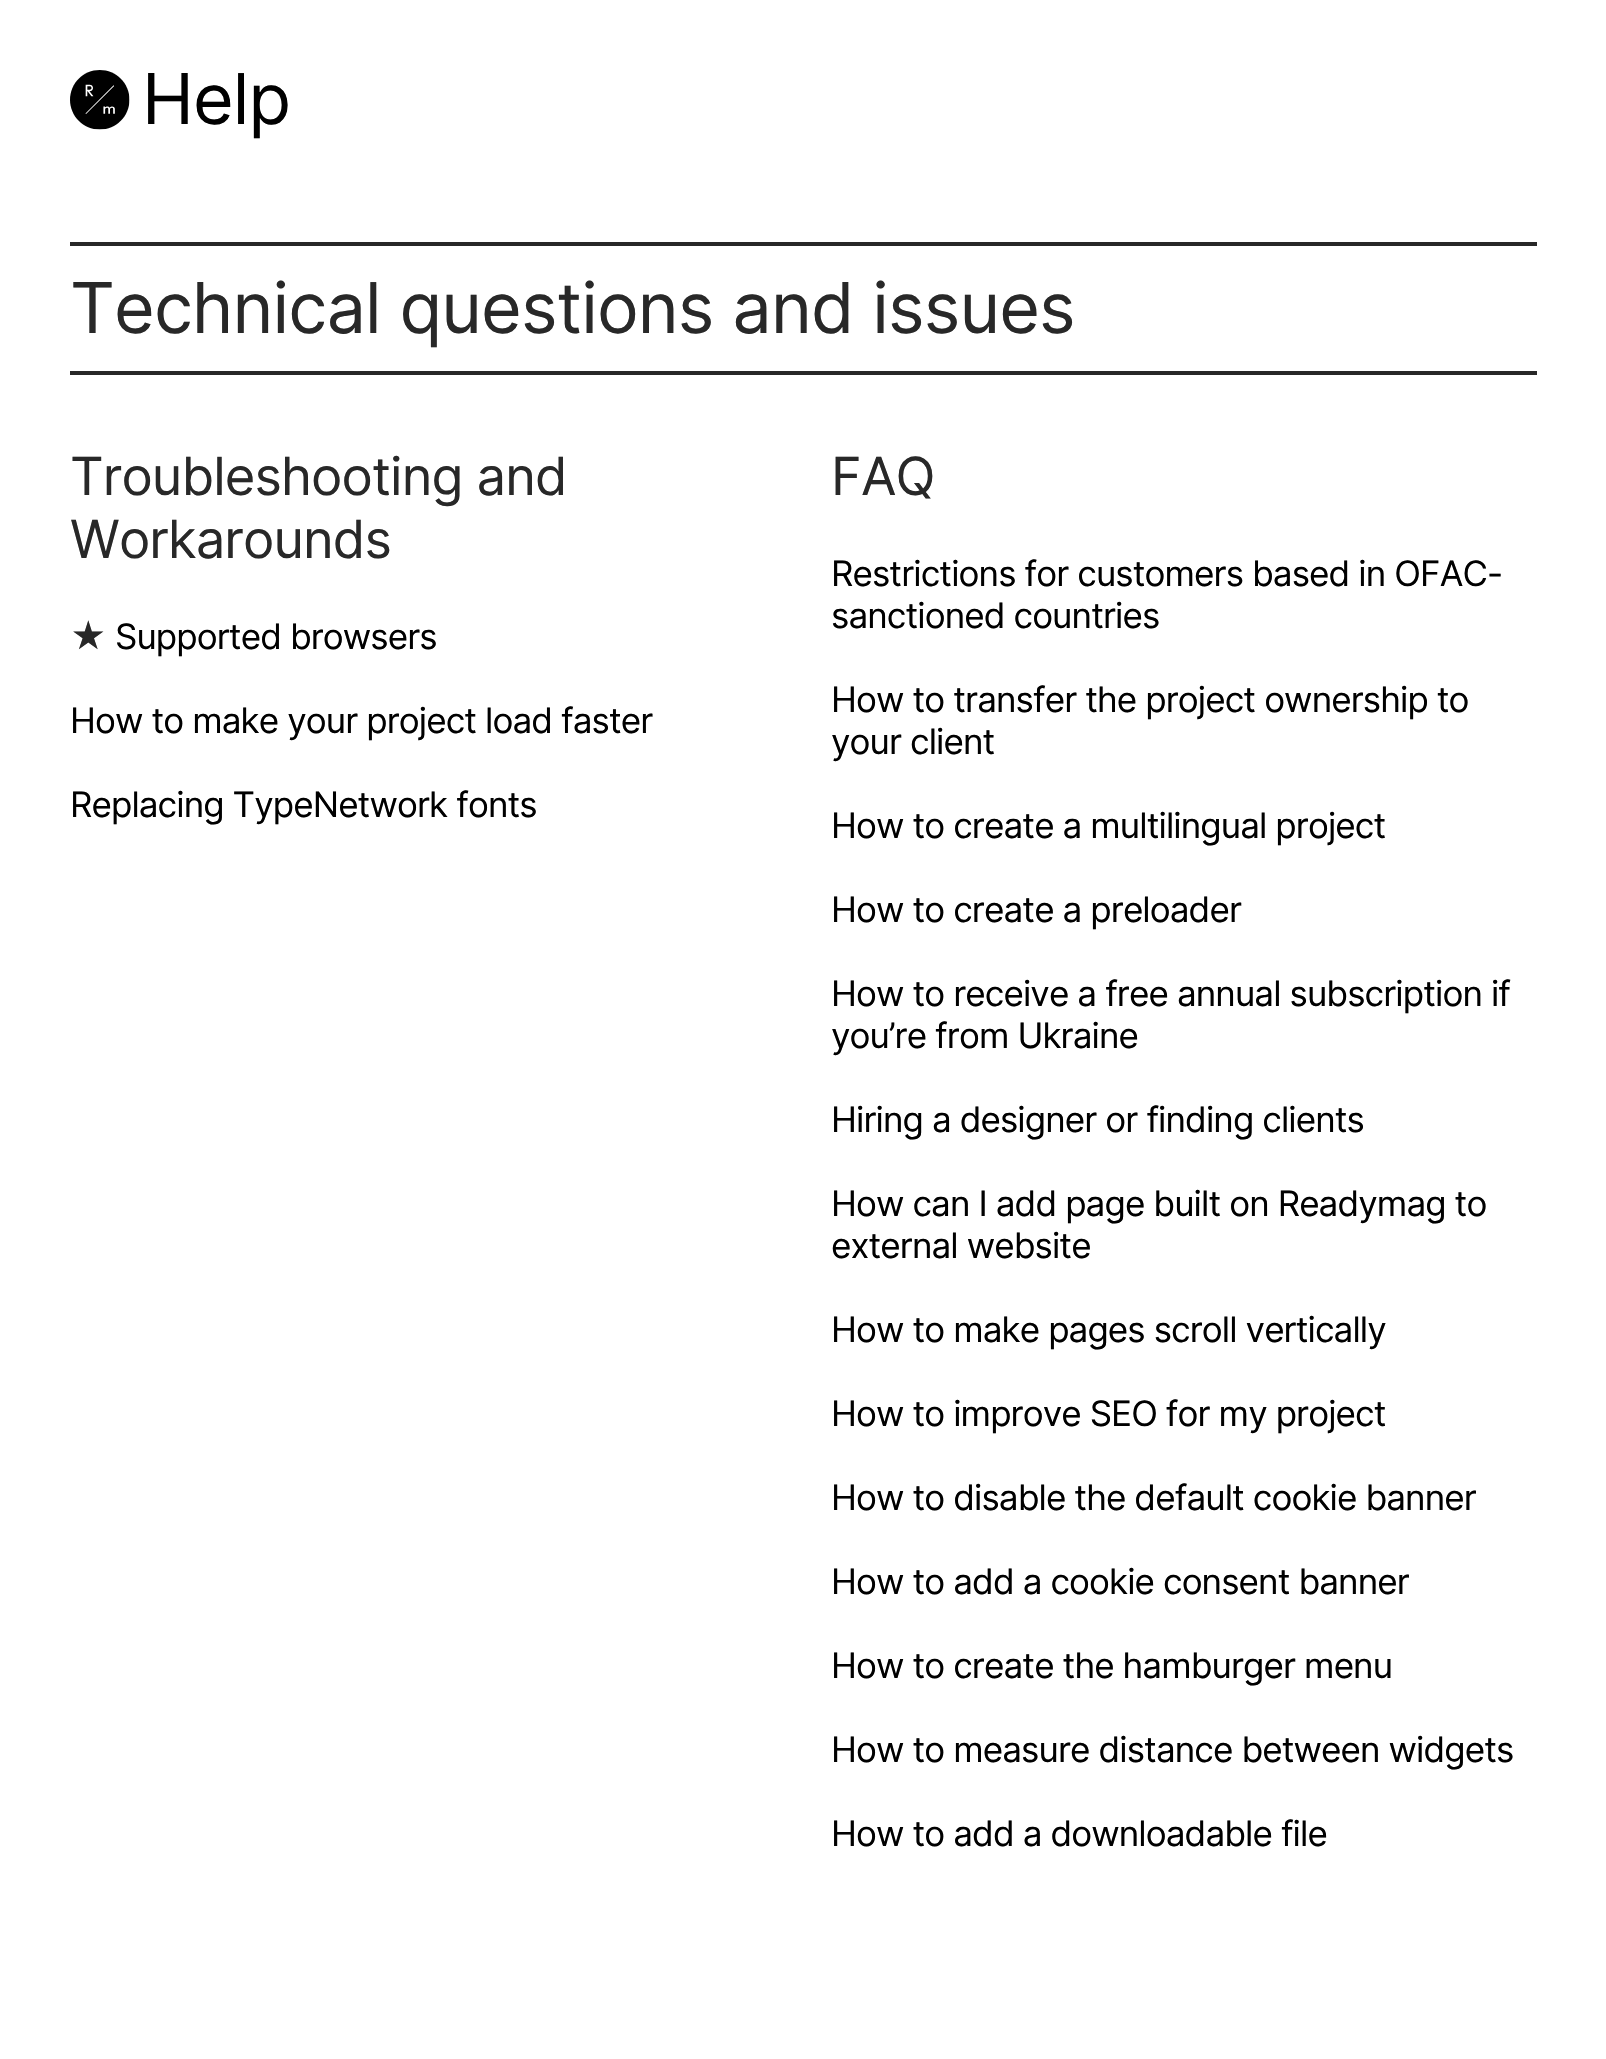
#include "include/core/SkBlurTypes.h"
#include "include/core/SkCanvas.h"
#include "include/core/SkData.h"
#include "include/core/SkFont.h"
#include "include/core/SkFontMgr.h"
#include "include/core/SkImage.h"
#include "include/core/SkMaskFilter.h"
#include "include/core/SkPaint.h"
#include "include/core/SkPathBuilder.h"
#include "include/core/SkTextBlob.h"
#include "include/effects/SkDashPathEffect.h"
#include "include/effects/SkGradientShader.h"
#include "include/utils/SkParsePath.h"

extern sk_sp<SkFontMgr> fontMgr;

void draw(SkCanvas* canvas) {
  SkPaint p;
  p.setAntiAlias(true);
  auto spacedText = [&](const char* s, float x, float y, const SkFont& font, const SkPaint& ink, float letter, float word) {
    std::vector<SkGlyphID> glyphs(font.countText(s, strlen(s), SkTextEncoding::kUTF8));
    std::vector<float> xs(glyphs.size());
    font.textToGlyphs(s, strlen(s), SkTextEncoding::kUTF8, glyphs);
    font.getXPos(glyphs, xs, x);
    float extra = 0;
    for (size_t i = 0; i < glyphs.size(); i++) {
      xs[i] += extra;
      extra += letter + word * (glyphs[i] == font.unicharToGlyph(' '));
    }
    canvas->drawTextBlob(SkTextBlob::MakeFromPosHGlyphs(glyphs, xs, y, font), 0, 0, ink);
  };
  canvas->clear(SK_ColorWHITE);
  canvas->drawImageRect(SkImages::DeferredFromEncodedData(SkData::MakeFromFileName("images/1.png")), SkRect::MakeLTRB(70, 70, 130, 130), SkSamplingOptions());
  p.setColor(SkColorSetRGB(40, 40, 40));
  canvas->drawRect(SkRect::MakeLTRB(70, 242, 1537, 246), p);
  canvas->drawRect(SkRect::MakeLTRB(70, 371, 1537, 375), p);
  SkFont font1(fontMgr->matchFamilyStyle("Inter", SkFontStyle::Normal()), 70);
  font1.setSubpixel(true);
  p.setColor(SK_ColorBLACK);
  spacedText("Help", 142, 124, font1, p, -0.9f, 0);
  p.setColor(SkColorSetRGB(40, 40, 40));
  spacedText("Technical questions and issues", 70, 333, font1, p, -0.9f, 0);
  SkFont font2(fontMgr->matchFamilyStyle("Inter", SkFontStyle::Normal()), 52.5f);
  font2.setSubpixel(true);
  spacedText("Troubleshooting and", 70, 495, font2, p, -0.9f, 0);
  spacedText("Workarounds", 70, 558, font2, p, -0.9f, 0);
  SkFont font3(fontMgr->matchFamilyStyle("Inter", SkFontStyle::Normal()), 35);
  font3.setSubpixel(true);
  spacedText("★", 70, 649, font3, p, -0.9f, 0);
  p.setColor(SK_ColorBLACK);
  spacedText("Supported browsers", 115, 649, font3, p, -0.9f, 0);
  spacedText("How to make your project load faster", 70, 733, font3, p, -0.9f, 0);
  spacedText("Replacing TypeNetwork fonts", 70, 817, font3, p, -0.9f, 0);
  p.setColor(SkColorSetRGB(40, 40, 40));
  spacedText("FAQ", 831, 495, font2, p, -0.9f, 0);
  p.setColor(SK_ColorBLACK);
  spacedText("Restrictions for customers based in OFAC-", 831, 586, font3, p, -0.9f, 0);
  spacedText("sanctioned countries", 831, 628, font3, p, -0.9f, 0);
  spacedText("How to transfer the project ownership to", 831, 712, font3, p, -0.9f, 0);
  spacedText("your client", 831, 754, font3, p, -0.9f, 0);
  spacedText("How to create a multilingual project", 831, 838, font3, p, -0.9f, 0);
  spacedText("How to create a preloader", 831, 922, font3, p, -0.9f, 0);
  spacedText("How to receive a free annual subscription if", 831, 1006, font3, p, -0.9f, 0);
  spacedText("you’re from Ukraine", 831, 1048, font3, p, -0.9f, 0);
  spacedText("Hiring a designer or finding clients", 831, 1132, font3, p, -0.9f, 0);
  spacedText("How can I add page built on Readymag to", 831, 1216, font3, p, -0.9f, 0);
  spacedText("external website", 831, 1258, font3, p, -0.9f, 0);
  spacedText("How to make pages scroll vertically", 831, 1342, font3, p, -0.9f, 0);
  spacedText("How to improve SEO for my project", 831, 1426, font3, p, -0.9f, 0);
  spacedText("How to disable the default cookie banner", 831, 1510, font3, p, -0.9f, 0);
  spacedText("How to add a cookie consent banner", 831, 1594, font3, p, -0.9f, 0);
  spacedText("How to create the hamburger menu", 831, 1678, font3, p, -0.9f, 0);
  spacedText("How to measure distance between widgets", 831, 1762, font3, p, -0.9f, 0);
  spacedText("How to add a downloadable file", 831, 1846, font3, p, -0.9f, 0);
}
